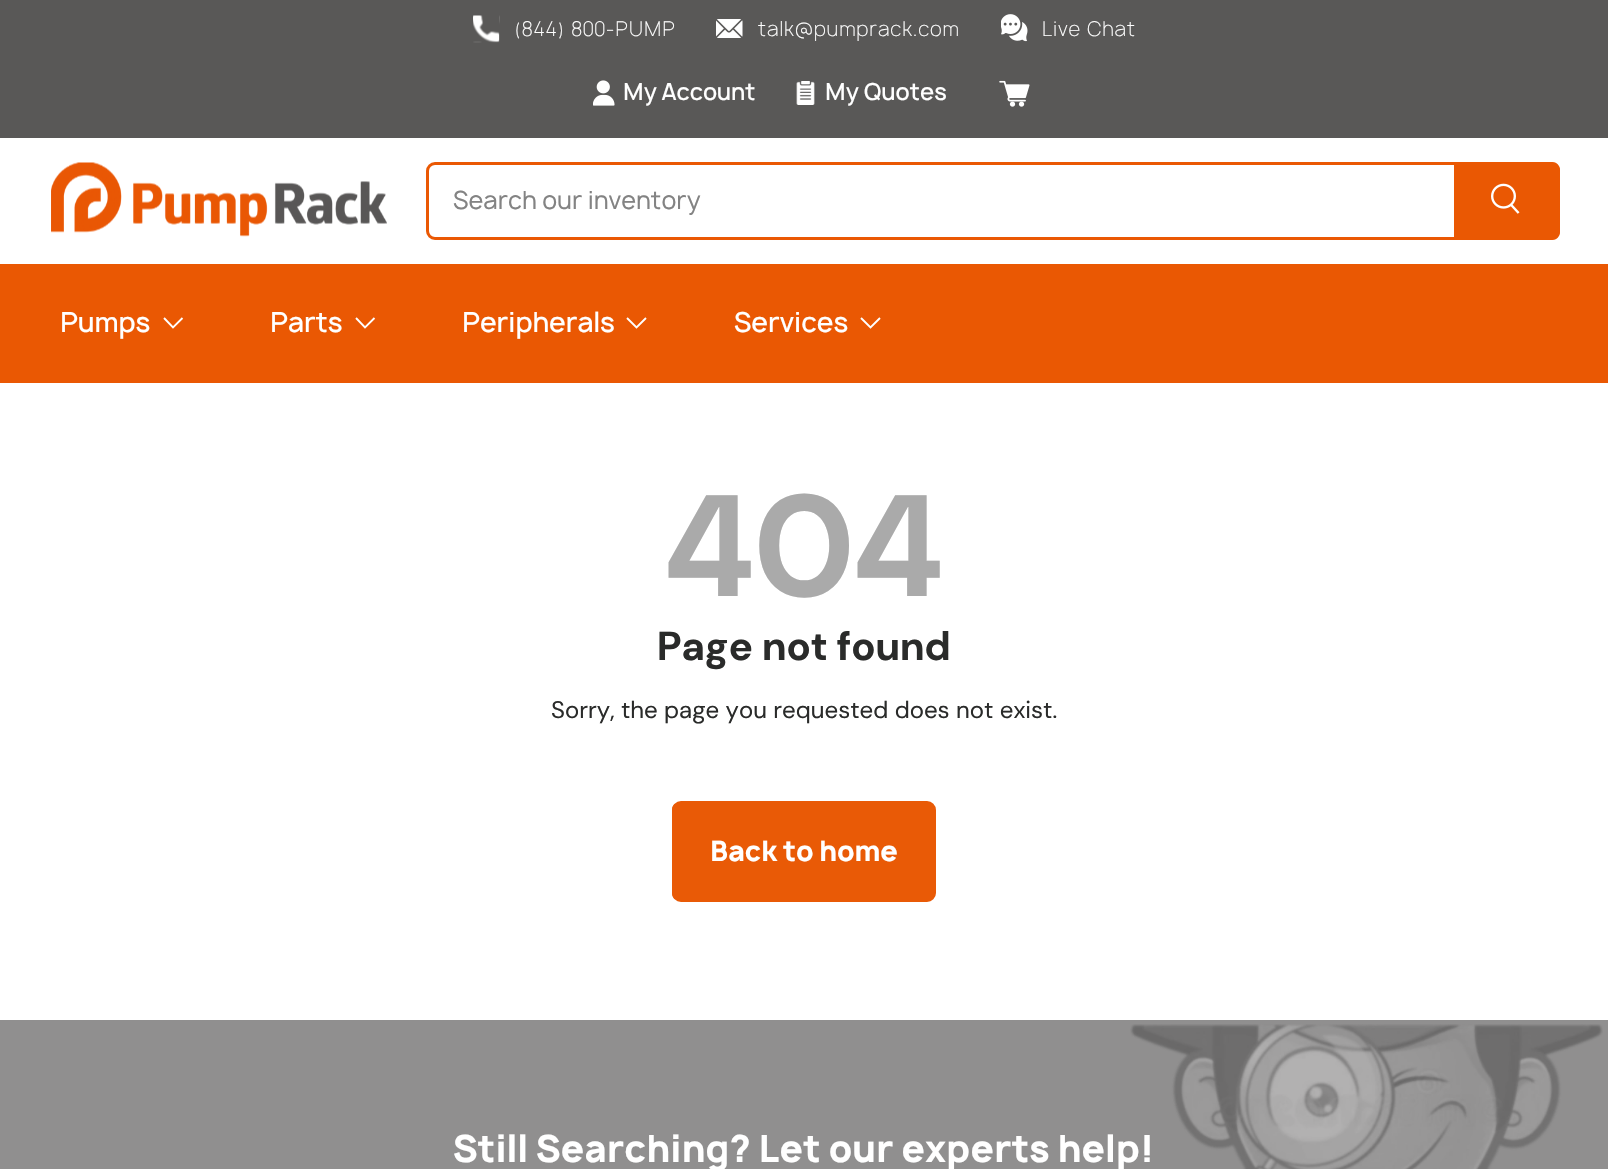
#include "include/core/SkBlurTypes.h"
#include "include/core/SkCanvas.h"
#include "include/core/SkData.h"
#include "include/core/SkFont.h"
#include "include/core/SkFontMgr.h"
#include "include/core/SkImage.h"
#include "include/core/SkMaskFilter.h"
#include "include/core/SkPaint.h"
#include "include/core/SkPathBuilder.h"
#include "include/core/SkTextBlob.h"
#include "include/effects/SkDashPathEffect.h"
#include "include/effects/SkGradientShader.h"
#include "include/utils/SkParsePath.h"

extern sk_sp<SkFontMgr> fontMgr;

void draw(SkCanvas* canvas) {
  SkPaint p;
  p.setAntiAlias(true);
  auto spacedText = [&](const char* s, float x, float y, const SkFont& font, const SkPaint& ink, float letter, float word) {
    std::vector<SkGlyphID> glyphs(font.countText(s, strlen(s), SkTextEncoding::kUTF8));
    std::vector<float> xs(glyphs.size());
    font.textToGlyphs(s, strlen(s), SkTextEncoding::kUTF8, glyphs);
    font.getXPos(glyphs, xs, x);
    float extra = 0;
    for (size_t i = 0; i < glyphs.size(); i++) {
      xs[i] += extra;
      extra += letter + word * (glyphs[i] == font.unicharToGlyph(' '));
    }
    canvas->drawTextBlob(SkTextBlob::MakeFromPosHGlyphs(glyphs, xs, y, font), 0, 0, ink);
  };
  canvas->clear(SK_ColorWHITE);
  p.setColor(SkColorSetRGB(89, 88, 87));
  canvas->drawRect(SkRect::MakeLTRB(0, 0, 1608, 138), p);
  canvas->drawImageRect(SkImages::DeferredFromEncodedData(SkData::MakeFromFileName("images/1.png")), SkRect::MakeLTRB(473, 15, 500, 43), SkSamplingOptions());
  canvas->drawImageRect(SkImages::DeferredFromEncodedData(SkData::MakeFromFileName("images/2.png")), SkRect::MakeLTRB(716, 19, 743, 38), SkSamplingOptions());
  canvas->drawImageRect(SkImages::DeferredFromEncodedData(SkData::MakeFromFileName("images/3.png")), SkRect::MakeLTRB(1001, 14, 1028, 42), SkSamplingOptions());
  canvas->drawImageRect(SkImages::DeferredFromEncodedData(SkData::MakeFromFileName("images/4.png")), SkRect::MakeLTRB(593, 80, 615, 106), SkSamplingOptions());
  canvas->drawImageRect(SkImages::DeferredFromEncodedData(SkData::MakeFromFileName("images/5.png")), SkRect::MakeLTRB(796, 81, 815, 105), SkSamplingOptions());
  canvas->drawImageRect(SkImages::DeferredFromEncodedData(SkData::MakeFromFileName("images/6.png")), SkRect::MakeLTRB(999, 80, 1030, 107), SkSamplingOptions());
  canvas->drawImageRect(SkImages::DeferredFromEncodedData(SkData::MakeFromFileName("images/7.png")), SkRect::MakeLTRB(51, 162, 387, 237), SkSamplingOptions());
  p.setStyle(SkPaint::kStroke_Style);
  p.setStrokeWidth(3);
  p.setColor(SkColorSetRGB(234, 88, 3));
  canvas->drawRoundRect(SkRect::MakeLTRB(427.5f, 163.5f, 1558.5f, 238.5f), 7.5f, 7.5f, p);
  p.setStyle(SkPaint::kFill_Style);
  canvas->drawPath(SkPathBuilder().moveTo(1454, 162).lineTo(1552, 162).cubicTo(1556.5f, 162, 1560, 165.5f, 1560, 170).lineTo(1560, 232).cubicTo(1560, 236.5f, 1556.5f, 240, 1552, 240).lineTo(1454, 240).close().detach(), p);
  canvas->drawImageRect(SkImages::DeferredFromEncodedData(SkData::MakeFromFileName("images/8.png")), SkRect::MakeLTRB(1491, 183, 1520, 214), SkSamplingOptions());
  canvas->drawRect(SkRect::MakeLTRB(0, 264, 1608, 383), p);
  p.setStyle(SkPaint::kStroke_Style);
  p.setStrokeWidth(1.9f);
  p.setColor(SK_ColorWHITE);
  canvas->drawPath(SkPathBuilder().moveTo(182.5f, 318).lineTo(173, 327.5f).lineTo(164, 318).detach(), p);
  canvas->drawPath(SkPathBuilder().moveTo(374.5f, 318).lineTo(365, 327.5f).lineTo(356, 318).detach(), p);
  canvas->drawPath(SkPathBuilder().moveTo(646, 318).lineTo(636.5f, 327.5f).lineTo(627, 318).detach(), p);
  canvas->drawPath(SkPathBuilder().moveTo(880, 318).lineTo(870.5f, 327.5f).lineTo(861, 318).detach(), p);
  canvas->save();
  canvas->clipPath(SkPathBuilder().moveTo(681, 801).lineTo(927, 801).cubicTo(932, 801, 936, 805, 936, 810).lineTo(936, 893).cubicTo(936, 898, 932, 902, 927, 902).lineTo(681, 902).cubicTo(676, 902, 672, 898, 672, 893).lineTo(672, 810).cubicTo(672, 805, 676, 801, 681, 801).close().detach(), true);
  p.setStyle(SkPaint::kFill_Style);
  {
    const SkColor colors[] = {SkColorSetRGB(237, 124, 57), SkColorSetRGB(233, 90, 6), SkColorSetRGB(233, 90, 6)};
    const float stops[] = {0.6f, 0.6f, 1};
    const SkPoint ends[] = {{171, 758}, {921, 945}};
    p.setShader(SkGradientShader::MakeLinear(ends, colors, stops, 3, SkTileMode::kClamp));
    p.setAlpha(255);
  }
  canvas->drawRect(SkRect::MakeLTRB(672, 804, 933, 899), p);
  canvas->restore();
  p.setStyle(SkPaint::kStroke_Style);
  p.setStrokeWidth(3);
  p.setShader(nullptr);
  p.setColor(SkColorSetRGB(233, 90, 6));
  canvas->drawRoundRect(SkRect::MakeLTRB(673.5f, 802.5f, 934.5f, 900.5f), 7.5f, 7.5f, p);
  p.setStyle(SkPaint::kFill_Style);
  p.setColor(SkColorSetRGB(144, 143, 143));
  canvas->drawRect(SkRect::MakeLTRB(0, 1020, 1608, 1169), p);
  canvas->drawImageRect(SkImages::DeferredFromEncodedData(SkData::MakeFromFileName("images/9.png")), SkRect::MakeLTRB(1130, 1024, 1603, 1169), SkSamplingOptions());
  SkFont font1(fontMgr->matchFamilyStyle("Manrope", SkFontStyle(100, SkFontStyle::kNormal_Width, SkFontStyle::kUpright_Slant)), 19.5f);
  font1.setSubpixel(true);
  p.setColor(SK_ColorWHITE);
  spacedText("(844) 800-PUMP", 514, 36, font1, p, 0.9f, 0);
  spacedText("talk@pumprack.com", 758, 36, font1, p, 0.9f, 0);
  spacedText("Live Chat", 1042, 36, font1, p, 0.9f, 0);
  SkFont font2(fontMgr->matchFamilyStyle("Manrope", SkFontStyle(500, SkFontStyle::kNormal_Width, SkFontStyle::kUpright_Slant)), 22.5f);
  font2.setSubpixel(true);
  canvas->drawString("My Account", 623, 100, font2, p);
  canvas->drawString("My Quotes", 825, 100, font2, p);
  SkFont font3(fontMgr->matchFamilyStyle("Manrope", SkFontStyle::Normal()), 24);
  font3.setSubpixel(true);
  p.setColor(SkColorSetRGB(131, 131, 131));
  canvas->drawString("Search our inventory", 453, 209, font3, p);
  SkFont font4(fontMgr->matchFamilyStyle("Manrope", SkFontStyle(500, SkFontStyle::kNormal_Width, SkFontStyle::kUpright_Slant)), 26.5f);
  font4.setSubpixel(true);
  p.setColor(SK_ColorWHITE);
  canvas->drawString("Pumps", 60, 332, font4, p);
  canvas->drawString("Parts", 270, 332, font4, p);
  canvas->drawString("Peripherals", 462, 332, font4, p);
  canvas->drawString("Services", 734, 332, font4, p);
  SkFont font5(fontMgr->matchFamilyStyle("DM Sans", SkFontStyle::Bold()), 144);
  font5.setSubpixel(true);
  p.setColor(SkColorSetRGB(170, 170, 170));
  canvas->drawString("404", 665, 596, font5, p);
  SkFont font6(fontMgr->matchFamilyStyle("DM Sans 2", SkFontStyle::Bold()), 40.5f);
  font6.setSubpixel(true);
  p.setColor(SkColorSetRGB(42, 43, 42));
  canvas->drawString("Page not found", 657, 660, font6, p);
  SkFont font7(fontMgr->matchFamilyStyle("DM Sans", SkFontStyle::Normal()), 24);
  font7.setSubpixel(true);
  canvas->drawString("Sorry, the page you requested does not exist.", 551, 718, font7, p);
  SkFont font8(fontMgr->matchFamilyStyle("Manrope", SkFontStyle::Bold()), 27);
  font8.setSubpixel(true);
  p.setColor(SK_ColorWHITE);
  canvas->drawString("Back to home", 710, 861, font8, p);
  SkFont font9(fontMgr->matchFamilyStyle("Manrope", SkFontStyle::Bold()), 36);
  font9.setSubpixel(true);
  spacedText("Still Searching? Let our experts help!", 453, 1162, font9, p, 0.3f, 0);
}
